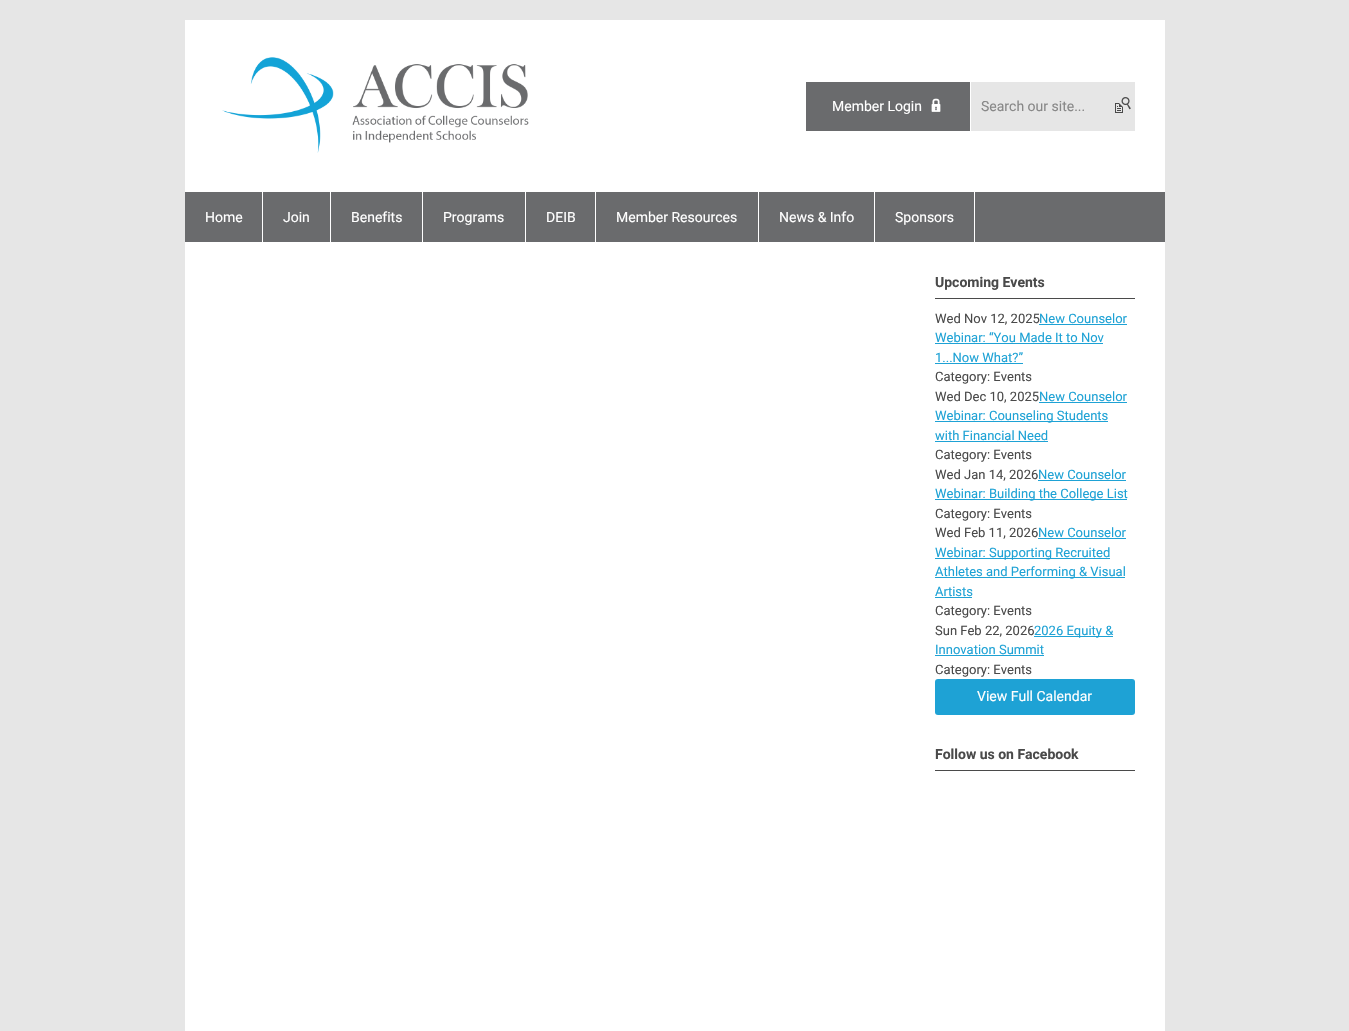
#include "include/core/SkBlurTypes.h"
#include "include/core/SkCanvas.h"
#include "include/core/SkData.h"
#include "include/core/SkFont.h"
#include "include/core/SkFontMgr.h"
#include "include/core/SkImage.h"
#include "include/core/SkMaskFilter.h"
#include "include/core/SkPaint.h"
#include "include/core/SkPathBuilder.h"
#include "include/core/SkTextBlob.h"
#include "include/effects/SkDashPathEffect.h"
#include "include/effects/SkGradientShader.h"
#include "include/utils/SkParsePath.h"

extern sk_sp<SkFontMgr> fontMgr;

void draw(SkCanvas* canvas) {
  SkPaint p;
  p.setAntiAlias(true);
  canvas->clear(SkColorSetRGB(230, 230, 230));
  p.setColor(SK_ColorWHITE);
  canvas->drawRect(SkRect::MakeLTRB(185, 20, 1165, 192), p);
  canvas->drawImageRect(SkImages::DeferredFromEncodedData(SkData::MakeFromFileName("images/1.png")), SkRect::MakeLTRB(222, 57, 529, 153), SkSamplingOptions());
  p.setColor(SkColorSetRGB(106, 107, 109));
  canvas->drawRect(SkRect::MakeLTRB(806, 82, 970, 131), p);
  canvas->drawImageRect(SkImages::DeferredFromEncodedData(SkData::MakeFromFileName("images/2.png")), SkRect::MakeLTRB(931, 98, 941, 112), SkSamplingOptions());
  p.setColor(SkColorSetRGB(230, 230, 230));
  canvas->drawRect(SkRect::MakeLTRB(971, 82, 1135, 131), p);
  canvas->drawImageRect(SkImages::DeferredFromEncodedData(SkData::MakeFromFileName("images/3.png")), SkRect::MakeLTRB(1115, 97, 1131, 113), SkSamplingOptions());
  p.setColor(SkColorSetRGB(106, 107, 109));
  canvas->drawRect(SkRect::MakeLTRB(185, 192, 1165, 242), p);
  p.setColor(SK_ColorWHITE);
  canvas->drawRect(SkRect::MakeLTRB(185, 242, 1165, 1031), p);
  canvas->drawRect(SkRect::MakeLTRB(262, 192, 263, 242), p);
  canvas->drawRect(SkRect::MakeLTRB(330, 192, 331, 242), p);
  canvas->drawRect(SkRect::MakeLTRB(422, 192, 423, 242), p);
  canvas->drawRect(SkRect::MakeLTRB(525, 192, 526, 242), p);
  canvas->drawRect(SkRect::MakeLTRB(595, 192, 596, 242), p);
  canvas->drawRect(SkRect::MakeLTRB(758, 192, 759, 242), p);
  canvas->drawRect(SkRect::MakeLTRB(874, 192, 875, 242), p);
  canvas->drawRect(SkRect::MakeLTRB(974, 192, 975, 242), p);
  p.setColor(SkColorSetRGB(74, 74, 74));
  canvas->drawRect(SkRect::MakeLTRB(935, 298, 1135, 299), p);
  p.setColor(SkColorSetRGB(30, 162, 213));
  canvas->drawRect(SkRect::MakeLTRB(1039, 324, 1127, 325), p);
  canvas->drawRect(SkRect::MakeLTRB(935, 343, 1103, 344), p);
  canvas->drawRect(SkRect::MakeLTRB(935, 363, 1023, 364), p);
  canvas->drawRect(SkRect::MakeLTRB(1039, 402, 1127, 403), p);
  canvas->drawRect(SkRect::MakeLTRB(935, 421, 1108, 422), p);
  canvas->drawRect(SkRect::MakeLTRB(935, 441, 1048, 442), p);
  canvas->drawRect(SkRect::MakeLTRB(1038, 480, 1126, 481), p);
  canvas->drawRect(SkRect::MakeLTRB(935, 499, 1127, 500), p);
  canvas->drawRect(SkRect::MakeLTRB(1038, 538, 1126, 539), p);
  canvas->drawRect(SkRect::MakeLTRB(935, 558, 1110, 559), p);
  canvas->drawRect(SkRect::MakeLTRB(935, 577, 1125, 578), p);
  canvas->drawRect(SkRect::MakeLTRB(935, 597, 972, 598), p);
  canvas->drawRect(SkRect::MakeLTRB(1034, 636, 1113, 637), p);
  canvas->drawRect(SkRect::MakeLTRB(935, 655, 1044, 656), p);
  canvas->drawRoundRect(SkRect::MakeLTRB(935, 679, 1135, 715), 3, 3, p);
  p.setColor(SkColorSetRGB(74, 74, 74));
  canvas->drawRect(SkRect::MakeLTRB(935, 770, 1135, 771), p);
  SkFont font1(fontMgr->matchFamilyStyle("Roboto", SkFontStyle::Normal()), 14);
  font1.setSubpixel(true);
  p.setColor(SK_ColorWHITE);
  canvas->drawString("Member Login", 832, 111, font1, p);
  p.setColor(SkColorSetRGB(136, 136, 136));
  canvas->drawString("Search our site...", 981, 111, font1, p);
  p.setColor(SK_ColorWHITE);
  canvas->drawString("Home", 205, 222, font1, p);
  canvas->drawString("Join", 283, 222, font1, p);
  canvas->drawString("Benefits", 351, 222, font1, p);
  canvas->drawString("Programs", 443, 222, font1, p);
  canvas->drawString("DEIB", 546, 222, font1, p);
  canvas->drawString("Member Resources", 616, 222, font1, p);
  canvas->drawString("News & Info", 779, 222, font1, p);
  canvas->drawString("Sponsors", 895, 222, font1, p);
  SkFont font2(fontMgr->matchFamilyStyle("Roboto", SkFontStyle::Bold()), 14);
  font2.setSubpixel(true);
  p.setColor(SkColorSetRGB(74, 74, 74));
  canvas->drawString("Upcoming Events", 935, 287, font2, p);
  SkFont font3(fontMgr->matchFamilyStyle("Roboto", SkFontStyle::Normal()), 13);
  font3.setSubpixel(true);
  canvas->drawString("Wed Nov 12, 2025", 935, 323, font3, p);
  p.setColor(SkColorSetRGB(30, 162, 213));
  canvas->drawString("New Counselor", 1039, 323, font3, p);
  canvas->drawString("Webinar: “You Made It to Nov", 935, 342, font3, p);
  canvas->drawString("1...Now What?”", 935, 362, font3, p);
  p.setColor(SkColorSetRGB(74, 74, 74));
  canvas->drawString("Category: Events", 935, 381, font3, p);
  canvas->drawString("Wed Dec 10, 2025", 935, 401, font3, p);
  p.setColor(SkColorSetRGB(30, 162, 213));
  canvas->drawString("New Counselor", 1039, 401, font3, p);
  canvas->drawString("Webinar: Counseling Students", 935, 420, font3, p);
  canvas->drawString("with Financial Need", 935, 440, font3, p);
  p.setColor(SkColorSetRGB(74, 74, 74));
  canvas->drawString("Category: Events", 935, 459, font3, p);
  canvas->drawString("Wed Jan 14, 2026", 935, 479, font3, p);
  p.setColor(SkColorSetRGB(30, 162, 213));
  canvas->drawString("New Counselor", 1038, 479, font3, p);
  canvas->drawString("Webinar: Building the College List", 935, 498, font3, p);
  p.setColor(SkColorSetRGB(74, 74, 74));
  canvas->drawString("Category: Events", 935, 518, font3, p);
  canvas->drawString("Wed Feb 11, 2026", 935, 537, font3, p);
  p.setColor(SkColorSetRGB(30, 162, 213));
  canvas->drawString("New Counselor", 1038, 537, font3, p);
  canvas->drawString("Webinar: Supporting Recruited", 935, 557, font3, p);
  canvas->drawString("Athletes and Performing & Visual", 935, 576, font3, p);
  canvas->drawString("Artists", 935, 596, font3, p);
  p.setColor(SkColorSetRGB(74, 74, 74));
  canvas->drawString("Category: Events", 935, 615, font3, p);
  canvas->drawString("Sun Feb 22, 2026", 935, 635, font3, p);
  p.setColor(SkColorSetRGB(30, 162, 213));
  canvas->drawString("2026 Equity &", 1034, 635, font3, p);
  canvas->drawString("Innovation Summit", 935, 654, font3, p);
  p.setColor(SkColorSetRGB(74, 74, 74));
  canvas->drawString("Category: Events", 935, 674, font3, p);
  p.setColor(SK_ColorWHITE);
  canvas->drawString("View Full Calendar", 977, 701, font1, p);
  p.setColor(SkColorSetRGB(74, 74, 74));
  canvas->drawString("Follow us on Facebook", 935, 759, font2, p);
}
